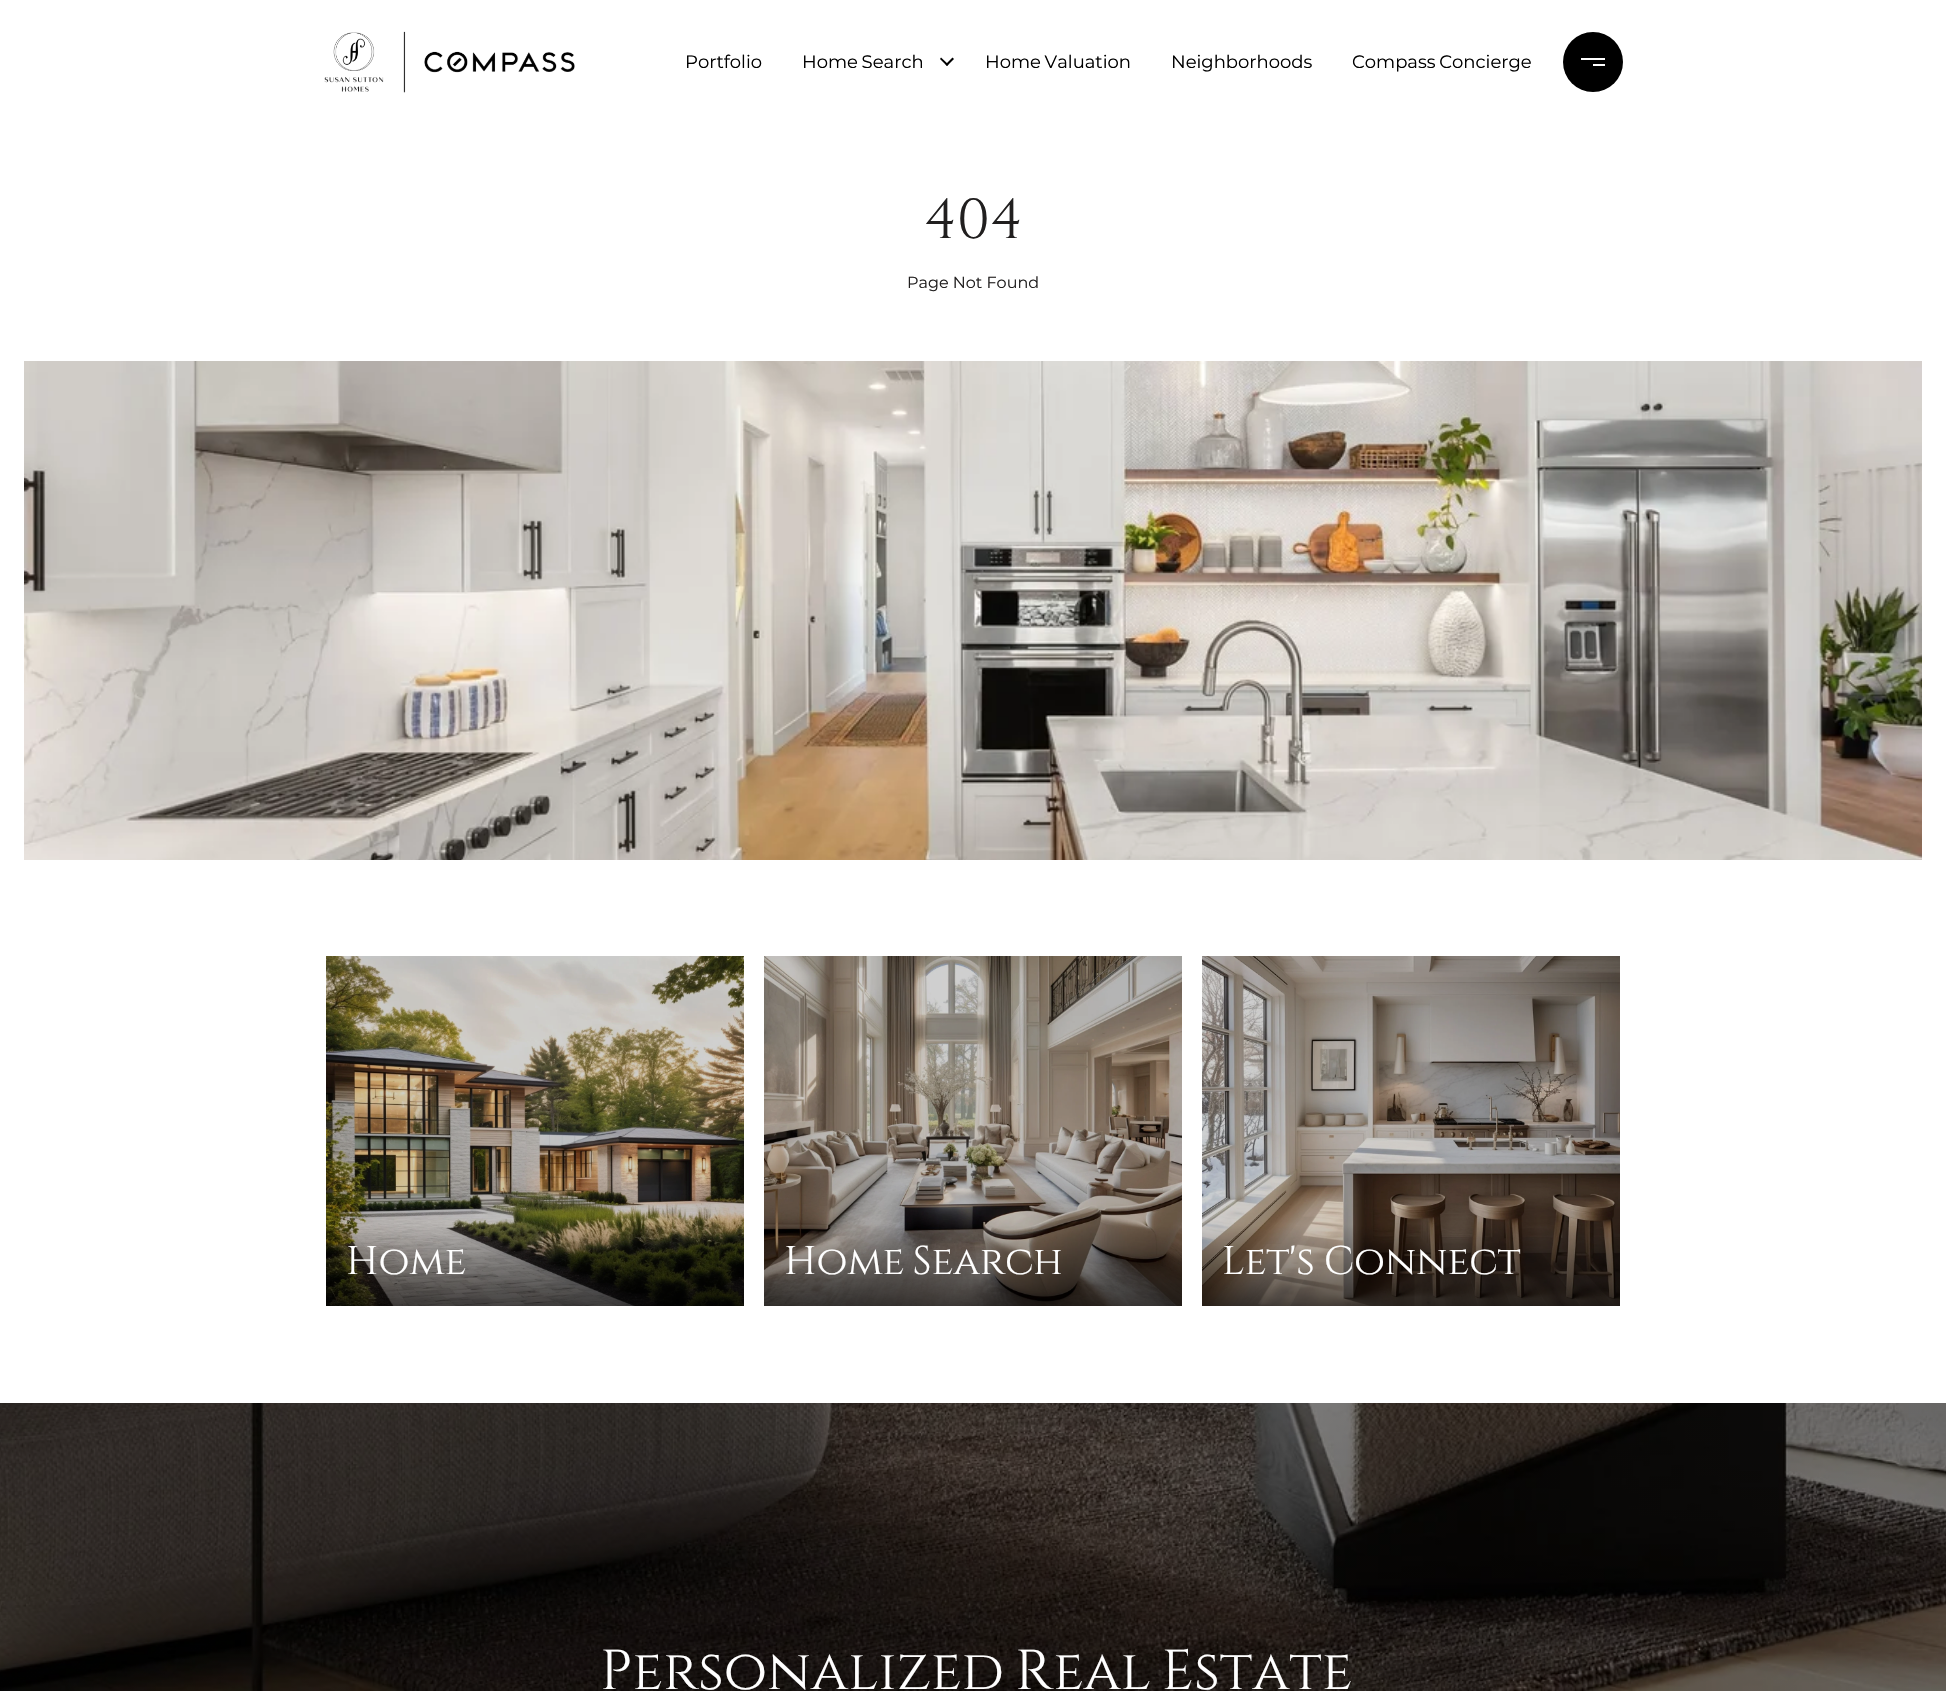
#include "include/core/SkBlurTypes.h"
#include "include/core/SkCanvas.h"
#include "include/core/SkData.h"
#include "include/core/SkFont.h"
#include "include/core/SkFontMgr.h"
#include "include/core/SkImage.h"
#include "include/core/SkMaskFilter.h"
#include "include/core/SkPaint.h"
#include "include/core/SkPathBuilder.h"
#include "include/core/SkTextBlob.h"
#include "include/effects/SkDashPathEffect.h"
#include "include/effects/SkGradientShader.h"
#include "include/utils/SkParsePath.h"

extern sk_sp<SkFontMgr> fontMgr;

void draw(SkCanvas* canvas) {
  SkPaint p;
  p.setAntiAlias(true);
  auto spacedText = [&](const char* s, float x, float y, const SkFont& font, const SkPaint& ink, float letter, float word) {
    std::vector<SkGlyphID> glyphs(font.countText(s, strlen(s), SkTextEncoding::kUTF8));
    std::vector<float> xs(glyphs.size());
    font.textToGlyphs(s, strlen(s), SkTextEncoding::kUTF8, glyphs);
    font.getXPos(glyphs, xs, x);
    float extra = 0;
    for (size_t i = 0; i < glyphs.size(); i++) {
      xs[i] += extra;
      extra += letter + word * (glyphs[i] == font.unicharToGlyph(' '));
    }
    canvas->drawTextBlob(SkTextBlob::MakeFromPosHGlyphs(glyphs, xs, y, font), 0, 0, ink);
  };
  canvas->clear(SK_ColorWHITE);
  canvas->drawImageRect(SkImages::DeferredFromEncodedData(SkData::MakeFromFileName("images/1.png")), SkRect::MakeLTRB(324, 31, 575, 93), SkSamplingOptions());
  p.setColor(SK_ColorBLACK);
  canvas->drawPath(SkPathBuilder().moveTo(952.5f, 57.5f).lineTo(954, 59).lineTo(947, 66).lineTo(945.5f, 64.5f).close().detach(), p);
  canvas->drawPath(SkPathBuilder().moveTo(941, 57.5f).lineTo(948.5f, 64.5f).lineTo(947, 66).lineTo(940, 59).close().detach(), p);
  canvas->drawCircle(1593, 62, 30, p);
  p.setColor(SK_ColorWHITE);
  canvas->drawRect(SkRect::MakeLTRB(1581, 58, 1605, 60), p);
  canvas->drawRect(SkRect::MakeLTRB(1593, 64, 1605, 66), p);
  canvas->drawImageRect(SkImages::DeferredFromEncodedData(SkData::MakeFromFileName("images/2.png")), SkRect::MakeLTRB(24, 361, 1922, 860), SkSamplingOptions());
  canvas->drawImageRect(SkImages::DeferredFromEncodedData(SkData::MakeFromFileName("images/3.png")), SkRect::MakeLTRB(326, 956, 744, 1306), SkSamplingOptions());
  canvas->drawImageRect(SkImages::DeferredFromEncodedData(SkData::MakeFromFileName("images/4.png")), SkRect::MakeLTRB(764, 956, 1182, 1306), SkSamplingOptions());
  canvas->drawImageRect(SkImages::DeferredFromEncodedData(SkData::MakeFromFileName("images/5.png")), SkRect::MakeLTRB(1202, 956, 1620, 1306), SkSamplingOptions());
  canvas->drawImageRect(SkImages::DeferredFromEncodedData(SkData::MakeFromFileName("images/6.png")), SkRect::MakeLTRB(0, 1403, 1946, 1691), SkSamplingOptions());
  SkFont font1(fontMgr->matchFamilyStyle("Montserrat", SkFontStyle::Normal()), 18);
  font1.setSubpixel(true);
  p.setColor(SK_ColorBLACK);
  canvas->drawString("Portfolio", 685, 68, font1, p);
  spacedText("Home Search", 802, 68, font1, p, 0, -1);
  spacedText("Home Valuation", 985, 68, font1, p, 0, -1);
  canvas->drawString("Neighborhoods", 1171, 68, font1, p);
  spacedText("Compass Concierge", 1352, 68, font1, p, 0, -1);
  SkFont font2(fontMgr->matchFamilyStyle("Cinzel", SkFontStyle::Normal()), 56);
  font2.setSubpixel(true);
  p.setColor(SkColorSetRGB(33, 31, 31));
  canvas->drawString("404", 924, 238, font2, p);
  SkFont font3(fontMgr->matchFamilyStyle("Montserrat", SkFontStyle::Normal()), 16);
  font3.setSubpixel(true);
  canvas->drawString("Page Not Found", 907, 288, font3, p);
  SkFont font4(fontMgr->matchFamilyStyle("Cinzel", SkFontStyle::Normal()), 40);
  font4.setSubpixel(true);
  p.setColor(SK_ColorWHITE);
  canvas->drawString("Home", 346, 1274, font4, p);
  spacedText("Home Search", 784, 1274, font4, p, 0, -2);
  spacedText("Let's Connect", 1222, 1274, font4, p, 0, -1);
  spacedText("Personalized Real Estate", 600, 1689, font2, p, 0, -3);
}
